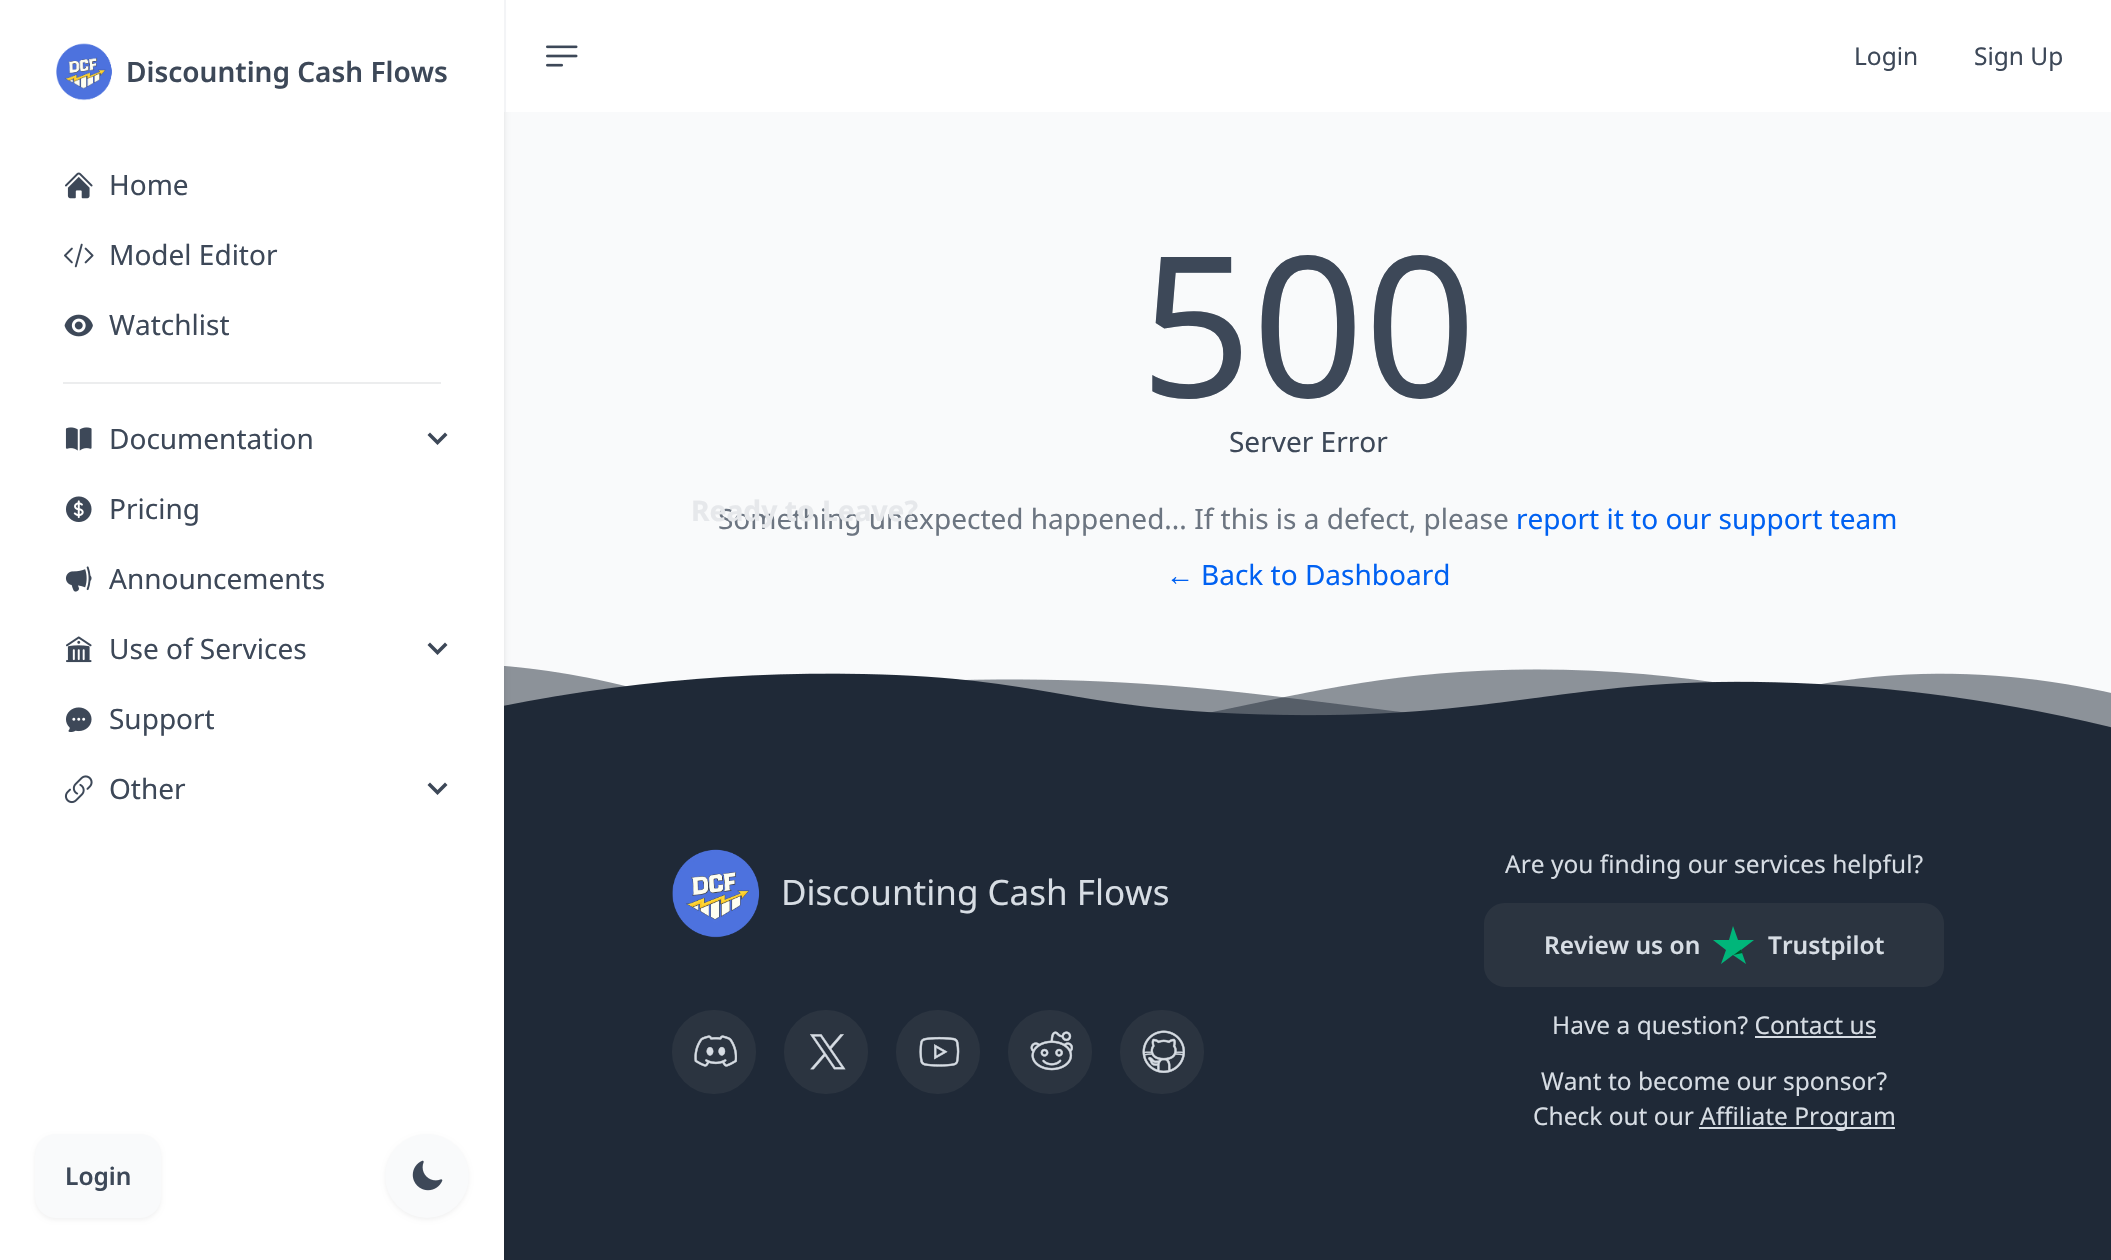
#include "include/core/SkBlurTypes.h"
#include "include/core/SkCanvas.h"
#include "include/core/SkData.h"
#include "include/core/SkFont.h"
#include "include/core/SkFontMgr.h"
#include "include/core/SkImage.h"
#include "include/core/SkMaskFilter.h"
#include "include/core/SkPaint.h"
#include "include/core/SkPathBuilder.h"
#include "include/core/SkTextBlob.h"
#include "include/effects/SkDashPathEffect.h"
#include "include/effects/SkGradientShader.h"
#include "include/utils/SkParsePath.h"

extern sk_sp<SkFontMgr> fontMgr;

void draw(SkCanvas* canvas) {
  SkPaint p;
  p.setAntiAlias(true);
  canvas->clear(SkColorSetRGB(249, 250, 251));
  canvas->drawImageRect(SkImages::DeferredFromEncodedData(SkData::MakeFromFileName("images/13.png")), SkRect::MakeLTRB(504, 666, 2111, 735), SkSamplingOptions());
  p.setColor(SkColorSetRGB(31, 41, 55));
  canvas->drawRect(SkRect::MakeLTRB(504, 735, 2111, 1260), p);
  p.setColor(SkColorSetARGB(26, 0, 0, 0));
  p.setMaskFilter(SkMaskFilter::MakeBlur(kNormal_SkBlurStyle, 2.5f));
  canvas->drawRect(SkRect::MakeLTRB(0, 2, 504, 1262), p);
  p.setMaskFilter(nullptr);
  p.setColor(SK_ColorWHITE);
  canvas->drawRect(SkRect::MakeLTRB(0, 0, 504, 1260), p);
  canvas->drawImageRect(SkImages::DeferredFromEncodedData(SkData::MakeFromFileName("images/1.png")), SkRect::MakeLTRB(56, 43, 112, 101), SkSamplingOptions());
  canvas->drawImageRect(SkImages::DeferredFromEncodedData(SkData::MakeFromFileName("images/2.png")), SkRect::MakeLTRB(65, 172, 93, 199), SkSamplingOptions());
  canvas->drawImageRect(SkImages::DeferredFromEncodedData(SkData::MakeFromFileName("images/3.png")), SkRect::MakeLTRB(64, 243, 94, 268), SkSamplingOptions());
  canvas->drawImageRect(SkImages::DeferredFromEncodedData(SkData::MakeFromFileName("images/4.png")), SkRect::MakeLTRB(64, 314, 93, 337), SkSamplingOptions());
  p.setColor(SkColorSetRGB(236, 237, 238));
  canvas->drawRect(SkRect::MakeLTRB(63, 382, 441, 384), p);
  canvas->drawImageRect(SkImages::DeferredFromEncodedData(SkData::MakeFromFileName("images/5.png")), SkRect::MakeLTRB(65, 427, 92, 451), SkSamplingOptions());
  p.setColor(SkColorSetRGB(61, 72, 88));
  canvas->drawPath(SkPathBuilder().moveTo(430, 432.5f).lineTo(427.5f, 435).lineTo(437.5f, 445).lineTo(447.5f, 435).lineTo(445, 432.5f).lineTo(437.5f, 440).close().detach(), p);
  canvas->drawImageRect(SkImages::DeferredFromEncodedData(SkData::MakeFromFileName("images/6.png")), SkRect::MakeLTRB(66, 496, 92, 522), SkSamplingOptions());
  canvas->drawImageRect(SkImages::DeferredFromEncodedData(SkData::MakeFromFileName("images/7.png")), SkRect::MakeLTRB(65, 566, 92, 592), SkSamplingOptions());
  canvas->drawImageRect(SkImages::DeferredFromEncodedData(SkData::MakeFromFileName("images/8.png")), SkRect::MakeLTRB(66, 636, 92, 663), SkSamplingOptions());
  canvas->drawPath(SkPathBuilder().moveTo(430, 642.5f).lineTo(427.5f, 645).lineTo(437.5f, 655).lineTo(447.5f, 645).lineTo(445, 642.5f).lineTo(437.5f, 650).close().detach(), p);
  canvas->drawImageRect(SkImages::DeferredFromEncodedData(SkData::MakeFromFileName("images/9.png")), SkRect::MakeLTRB(66, 707, 92, 732), SkSamplingOptions());
  canvas->drawImageRect(SkImages::DeferredFromEncodedData(SkData::MakeFromFileName("images/10.png")), SkRect::MakeLTRB(64, 775, 93, 804), SkSamplingOptions());
  canvas->drawPath(SkPathBuilder().moveTo(430, 782.5f).lineTo(427.5f, 785).lineTo(437.5f, 795).lineTo(447.5f, 785).lineTo(445, 782.5f).lineTo(437.5f, 790).close().detach(), p);
  p.setColor(SkColorSetARGB(13, 0, 0, 0));
  p.setMaskFilter(SkMaskFilter::MakeBlur(kNormal_SkBlurStyle, 2));
  canvas->drawRoundRect(SkRect::MakeLTRB(35, 1136, 161, 1220), 21, 21, p);
  p.setMaskFilter(nullptr);
  p.setColor(SkColorSetRGB(249, 250, 251));
  canvas->drawRoundRect(SkRect::MakeLTRB(35, 1134, 161, 1218), 21, 21, p);
  p.setColor(SkColorSetARGB(13, 0, 0, 0));
  p.setMaskFilter(SkMaskFilter::MakeBlur(kNormal_SkBlurStyle, 2));
  canvas->drawRoundRect(SkRect::MakeLTRB(385, 1136, 469, 1220), 42, 42, p);
  p.setMaskFilter(nullptr);
  p.setColor(SkColorSetRGB(249, 250, 251));
  canvas->drawCircle(427, 1176, 42, p);
  canvas->drawImageRect(SkImages::DeferredFromEncodedData(SkData::MakeFromFileName("images/11.png")), SkRect::MakeLTRB(412, 1160, 443, 1191), SkSamplingOptions());
  p.setColor(SkColorSetARGB(230, 255, 255, 255));
  canvas->drawRect(SkRect::MakeLTRB(506, 0, 2111, 112), p);
  p.setColor(SkColorSetRGB(243, 244, 246));
  canvas->drawRect(SkRect::MakeLTRB(504, 0, 506, 112), p);
  canvas->drawImageRect(SkImages::DeferredFromEncodedData(SkData::MakeFromFileName("images/12.png")), SkRect::MakeLTRB(546, 45, 578, 67), SkSamplingOptions());
  canvas->drawImageRect(SkImages::DeferredFromEncodedData(SkData::MakeFromFileName("images/14.png")), SkRect::MakeLTRB(672, 849, 760, 938), SkSamplingOptions());
  p.setColor(SkColorSetRGB(43, 52, 64));
  canvas->drawCircle(714, 1052, 41, p);
  p.setStyle(SkPaint::kStroke_Style);
  p.setStrokeWidth(2);
  canvas->drawCircle(714, 1052, 41, p);
  canvas->drawImageRect(SkImages::DeferredFromEncodedData(SkData::MakeFromFileName("images/15.png")), SkRect::MakeLTRB(694, 1035, 737, 1067), SkSamplingOptions());
  p.setStyle(SkPaint::kFill_Style);
  canvas->drawCircle(826, 1052, 41, p);
  p.setStyle(SkPaint::kStroke_Style);
  canvas->drawCircle(826, 1052, 41, p);
  canvas->drawImageRect(SkImages::DeferredFromEncodedData(SkData::MakeFromFileName("images/16.png")), SkRect::MakeLTRB(810, 1034, 846, 1070), SkSamplingOptions());
  p.setStyle(SkPaint::kFill_Style);
  canvas->drawCircle(938, 1052, 41, p);
  p.setStyle(SkPaint::kStroke_Style);
  canvas->drawCircle(938, 1052, 41, p);
  canvas->drawImageRect(SkImages::DeferredFromEncodedData(SkData::MakeFromFileName("images/17.png")), SkRect::MakeLTRB(919, 1036, 960, 1067), SkSamplingOptions());
  p.setStyle(SkPaint::kFill_Style);
  canvas->drawCircle(1050, 1052, 41, p);
  p.setStyle(SkPaint::kStroke_Style);
  canvas->drawCircle(1050, 1052, 41, p);
  canvas->drawImageRect(SkImages::DeferredFromEncodedData(SkData::MakeFromFileName("images/18.png")), SkRect::MakeLTRB(1030, 1031, 1073, 1071), SkSamplingOptions());
  p.setStyle(SkPaint::kFill_Style);
  canvas->drawCircle(1162, 1052, 41, p);
  p.setStyle(SkPaint::kStroke_Style);
  canvas->drawCircle(1162, 1052, 41, p);
  canvas->drawImageRect(SkImages::DeferredFromEncodedData(SkData::MakeFromFileName("images/19.png")), SkRect::MakeLTRB(1142, 1030, 1185, 1073), SkSamplingOptions());
  p.setStyle(SkPaint::kFill_Style);
  canvas->drawRoundRect(SkRect::MakeLTRB(1485, 904, 1943, 986), 20, 20, p);
  p.setStyle(SkPaint::kStroke_Style);
  canvas->drawRoundRect(SkRect::MakeLTRB(1485, 904, 1943, 986), 20, 20, p);
  p.setStyle(SkPaint::kFill_Style);
  p.setColor(SkColorSetRGB(0, 182, 122));
  canvas->drawPath(SkPathBuilder().moveTo(1754, 940).lineTo(1738, 940).lineTo(1733, 926).lineTo(1729, 940).lineTo(1713, 940).lineTo(1726, 950).lineTo(1721, 964).lineTo(1733, 955).lineTo(1746, 964).lineTo(1741, 950).close().detach(), p);
  p.setColor(SkColorSetRGB(0, 81, 40));
  canvas->drawPath(SkPathBuilder().moveTo(1742.5f, 953).lineTo(1741, 949.5f).lineTo(1733.5f, 955).close().detach(), p);
  p.setColor(SkColorSetRGB(215, 221, 228));
  canvas->drawRect(SkRect::MakeLTRB(1755, 1036, 1876, 1038), p);
  canvas->drawRect(SkRect::MakeLTRB(1699, 1127, 1895, 1129), p);
  SkFont font1(fontMgr->matchFamilyStyle("Noto Sans", SkFontStyle(600, SkFontStyle::kNormal_Width, SkFontStyle::kUpright_Slant)), 28);
  font1.setSubpixel(true);
  p.setColor(SkColorSetRGB(61, 72, 88));
  canvas->drawString("Discounting Cash Flows", 126, 82, font1, p);
  SkFont font2(fontMgr->matchFamilyStyle("Noto Sans", SkFontStyle::Normal()), 28);
  font2.setSubpixel(true);
  canvas->drawString("Home", 109, 195, font2, p);
  canvas->drawString("Model Editor", 109, 265, font2, p);
  canvas->drawString("Watchlist", 109, 335, font2, p);
  canvas->drawString("Documentation", 109, 449, font2, p);
  canvas->drawString("Pricing", 109, 519, font2, p);
  canvas->drawString("Announcements", 109, 589, font2, p);
  canvas->drawString("Use of Services", 109, 659, font2, p);
  canvas->drawString("Support", 109, 729, font2, p);
  canvas->drawString("Other", 109, 799, font2, p);
  SkFont font3(fontMgr->matchFamilyStyle("Noto Sans", SkFontStyle(600, SkFontStyle::kNormal_Width, SkFontStyle::kUpright_Slant)), 24.5f);
  font3.setSubpixel(true);
  canvas->drawString("Login", 65, 1185, font3, p);
  SkFont font4(fontMgr->matchFamilyStyle("Noto Sans", SkFontStyle::Normal()), 24.5f);
  font4.setSubpixel(true);
  canvas->drawString("Login", 1854, 65, font4, p);
  canvas->drawString("Sign Up", 1974, 65, font4, p);
  SkFont font5(fontMgr->matchFamilyStyle("Noto Sans", SkFontStyle::Normal()), 196);
  font5.setSubpixel(true);
  canvas->drawString("500", 1140, 397, font5, p);
  canvas->drawString("Server Error", 1229, 452, font2, p);
  p.setColor(SkColorSetRGB(108, 117, 129));
  canvas->drawString("Something unexpected happened... If this is a defect, please", 718, 529, font2, p);
  p.setColor(SkColorSetRGB(0, 97, 242));
  canvas->drawString("report it to our support team", 1516, 529, font2, p);
  SkFont font6(fontMgr->matchFamilyStyle("Liberation Sans", SkFontStyle::Normal()), 28);
  font6.setSubpixel(true);
  canvas->drawString("←", 1166, 585, font6, p);
  canvas->drawString("Back to Dashboard", 1201, 585, font2, p);
  SkFont font7(fontMgr->matchFamilyStyle("Noto Sans", SkFontStyle::Normal()), 35);
  font7.setSubpixel(true);
  p.setColor(SkColorSetRGB(215, 221, 228));
  canvas->drawString("Discounting Cash Flows", 781, 905, font7, p);
  canvas->drawString("Are you finding our services helpful?", 1505, 873, font4, p);
  canvas->drawString("Review us on", 1544, 954, font3, p);
  canvas->drawString("Trustpilot", 1768, 954, font3, p);
  canvas->drawString("Have a question? Contact us", 1552, 1034, font4, p);
  canvas->drawString("Want to become our sponsor?", 1541, 1090, font4, p);
  canvas->drawString("Check out our", 1533, 1125, font4, p);
  canvas->drawString("Affiliate Program", 1700, 1125, font4, p);
  SkFont font8(fontMgr->matchFamilyStyle("Noto Sans", SkFontStyle::Bold()), 28.25f);
  font8.setSubpixel(true);
  p.setColor(SkColorSetRGB(230, 232, 235));
  canvas->drawString("Ready to Leave?", 691, 521, font8, p);
}
